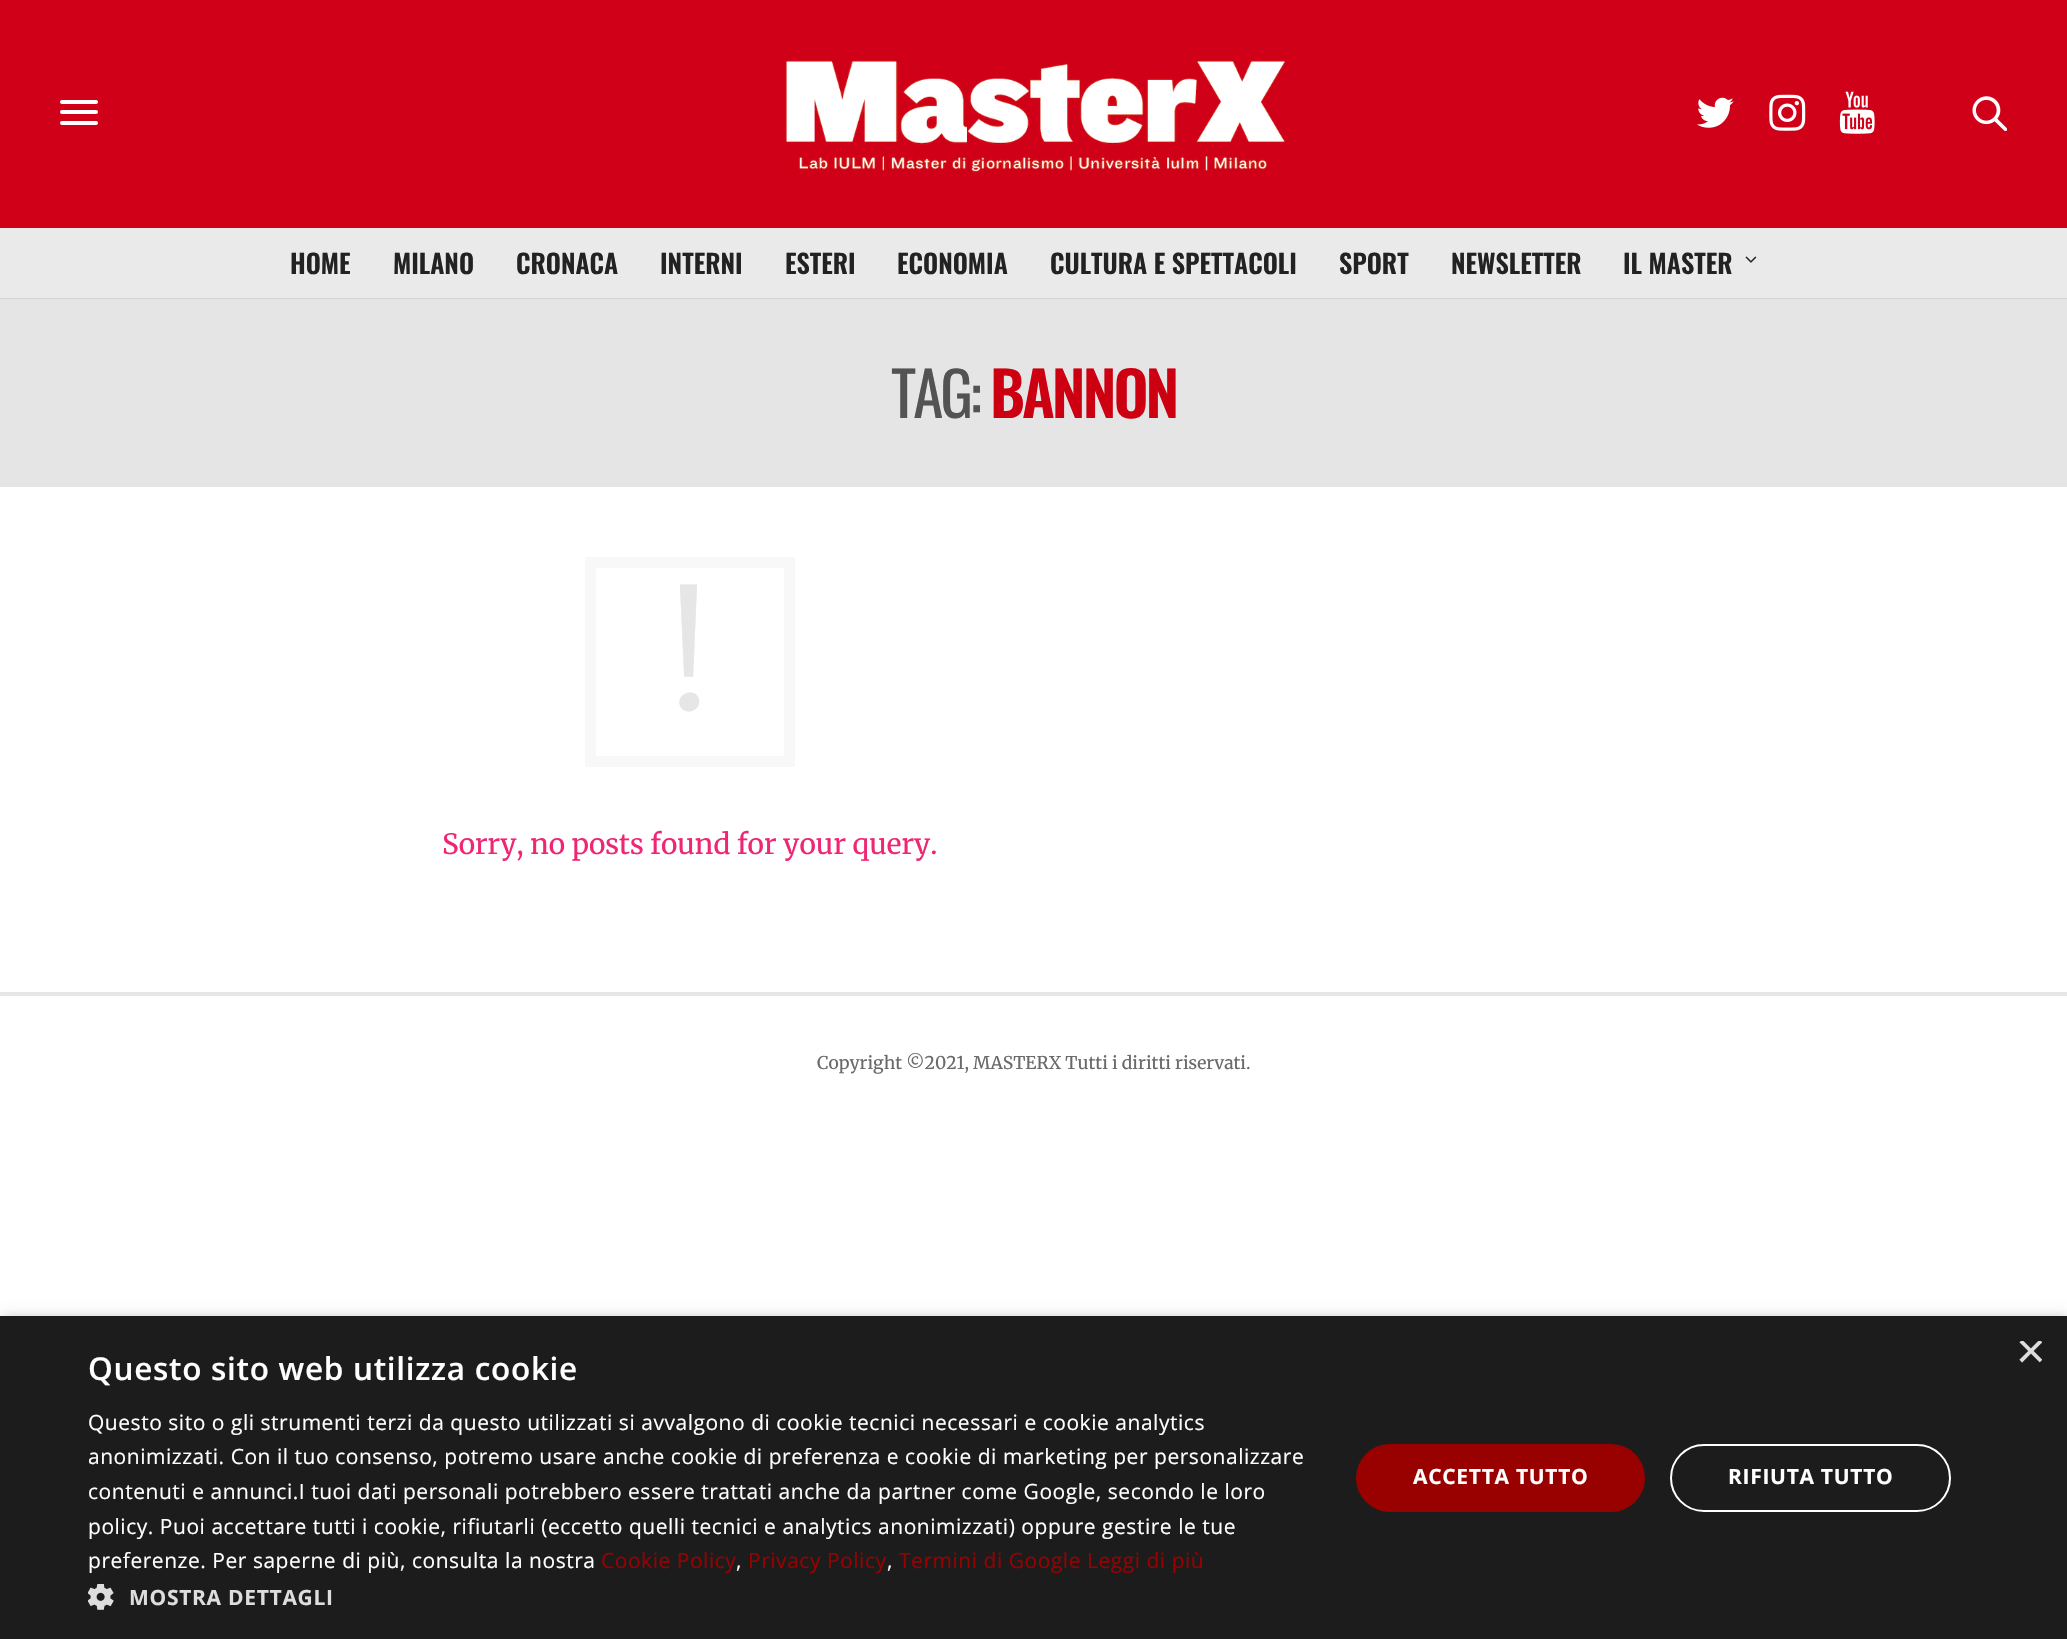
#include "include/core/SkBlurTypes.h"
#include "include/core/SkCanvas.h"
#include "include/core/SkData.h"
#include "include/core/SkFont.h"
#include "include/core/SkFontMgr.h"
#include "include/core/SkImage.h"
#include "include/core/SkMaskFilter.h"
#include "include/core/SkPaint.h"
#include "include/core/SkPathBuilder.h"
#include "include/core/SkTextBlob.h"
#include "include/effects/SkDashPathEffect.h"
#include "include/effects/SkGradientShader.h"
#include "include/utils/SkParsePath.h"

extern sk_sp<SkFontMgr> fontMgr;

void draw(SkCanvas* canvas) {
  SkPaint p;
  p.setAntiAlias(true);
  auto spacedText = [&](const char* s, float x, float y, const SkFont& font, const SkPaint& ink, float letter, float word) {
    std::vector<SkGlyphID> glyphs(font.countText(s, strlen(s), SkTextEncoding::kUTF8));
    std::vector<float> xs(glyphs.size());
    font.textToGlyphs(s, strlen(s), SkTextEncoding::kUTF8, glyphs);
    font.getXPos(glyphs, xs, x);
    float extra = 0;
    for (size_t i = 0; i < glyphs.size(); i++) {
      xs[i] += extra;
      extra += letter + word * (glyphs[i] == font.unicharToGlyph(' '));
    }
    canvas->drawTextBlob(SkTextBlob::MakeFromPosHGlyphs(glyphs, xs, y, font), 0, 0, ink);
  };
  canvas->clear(SK_ColorWHITE);
  p.setColor(SkColorSetRGB(209, 0, 25));
  canvas->drawRect(SkRect::MakeLTRB(0, 0, 2067, 228), p);
  p.setColor(SK_ColorWHITE);
  canvas->drawRoundRect(SkRect::MakeLTRB(60, 100, 98, 104), 2, 2, p);
  canvas->drawRoundRect(SkRect::MakeLTRB(60, 110, 98, 114), 2, 2, p);
  canvas->drawRoundRect(SkRect::MakeLTRB(60, 121, 98, 125), 2, 2, p);
  canvas->drawImageRect(SkImages::DeferredFromEncodedData(SkData::MakeFromFileName("images/1.png")), SkRect::MakeLTRB(785, 60, 1286, 173), SkSamplingOptions());
  canvas->drawImageRect(SkImages::DeferredFromEncodedData(SkData::MakeFromFileName("images/2.png")), SkRect::MakeLTRB(1697, 97, 1734, 128), SkSamplingOptions());
  canvas->drawImageRect(SkImages::DeferredFromEncodedData(SkData::MakeFromFileName("images/3.png")), SkRect::MakeLTRB(1769, 94, 1806, 131), SkSamplingOptions());
  canvas->drawImageRect(SkImages::DeferredFromEncodedData(SkData::MakeFromFileName("images/4.png")), SkRect::MakeLTRB(1839, 91, 1875, 134), SkSamplingOptions());
  canvas->drawImageRect(SkImages::DeferredFromEncodedData(SkData::MakeFromFileName("images/5.png")), SkRect::MakeLTRB(1972, 96, 2007, 131), SkSamplingOptions());
  p.setColor(SkColorSetRGB(234, 234, 234));
  canvas->drawRect(SkRect::MakeLTRB(0, 228, 2067, 298), p);
  p.setColor(SkColorSetRGB(211, 211, 211));
  canvas->drawRect(SkRect::MakeLTRB(0, 298, 2067, 299), p);
  canvas->drawImageRect(SkImages::DeferredFromEncodedData(SkData::MakeFromFileName("images/6.png")), SkRect::MakeLTRB(1745, 256, 1757, 263), SkSamplingOptions());
  p.setColor(SkColorSetRGB(229, 229, 229));
  canvas->drawRect(SkRect::MakeLTRB(0, 299, 2067, 487), p);
  p.setStyle(SkPaint::kStroke_Style);
  p.setStrokeWidth(11);
  p.setColor(SkColorSetRGB(248, 248, 248));
  canvas->drawRect(SkRect::MakeLTRB(590.5f, 562.5f, 789.5f, 761.5f), p);
  p.setStyle(SkPaint::kFill_Style);
  p.setColor(SkColorSetRGB(230, 230, 230));
  canvas->drawRect(SkRect::MakeLTRB(0, 992, 2067, 996), p);
  p.setColor(SkColorSetARGB(89, 0, 0, 0));
  p.setMaskFilter(SkMaskFilter::MakeBlur(kNormal_SkBlurStyle, 7));
  canvas->drawRect(SkRect::MakeLTRB(2, 1320, 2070, 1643), p);
  p.setMaskFilter(nullptr);
  p.setColor(SkColorSetRGB(28, 28, 28));
  canvas->drawRect(SkRect::MakeLTRB(0, 1316, 2067, 1639), p);
  canvas->drawImageRect(SkImages::DeferredFromEncodedData(SkData::MakeFromFileName("images/7.png")), SkRect::MakeLTRB(88, 1584, 114, 1610), SkSamplingOptions());
  p.setColor(SkColorSetRGB(153, 0, 0));
  canvas->drawRoundRect(SkRect::MakeLTRB(1356, 1444, 1645, 1512), 34, 34, p);
  p.setStyle(SkPaint::kStroke_Style);
  p.setStrokeWidth(2);
  p.setColor(SK_ColorWHITE);
  canvas->drawRoundRect(SkRect::MakeLTRB(1671, 1445, 1950, 1511), 33, 33, p);
  SkFont font1(fontMgr->matchFamilyStyle("Oswald", SkFontStyle(600, SkFontStyle::kNormal_Width, SkFontStyle::kUpright_Slant)), 26.25f);
  font1.setSubpixel(true);
  p.setStyle(SkPaint::kFill_Style);
  p.setColor(SkColorSetRGB(34, 34, 34));
  canvas->drawString("HOME", 290, 274, font1, p);
  canvas->drawString("MILANO", 393, 274, font1, p);
  canvas->drawString("CRONACA", 516, 274, font1, p);
  canvas->drawString("INTERNI", 660, 274, font1, p);
  canvas->drawString("ESTERI", 785, 274, font1, p);
  canvas->drawString("ECONOMIA", 897, 274, font1, p);
  canvas->drawString("CULTURA E SPETTACOLI", 1050, 274, font1, p);
  canvas->drawString("SPORT", 1339, 274, font1, p);
  canvas->drawString("NEWSLETTER", 1451, 274, font1, p);
  canvas->drawString("IL MASTER", 1623, 274, font1, p);
  SkFont font2(fontMgr->matchFamilyStyle("Oswald", SkFontStyle::Normal()), 61);
  font2.setSubpixel(true);
  p.setColor(SkColorSetRGB(84, 83, 83));
  spacedText("TAG:", 891, 418, font2, p, -3, 0);
  SkFont font3(fontMgr->matchFamilyStyle("Oswald", SkFontStyle(600, SkFontStyle::kNormal_Width, SkFontStyle::kUpright_Slant)), 61);
  font3.setSubpixel(true);
  p.setColor(SkColorSetRGB(204, 0, 17));
  spacedText("BANNON", 990, 418, font3, p, -3, 0);
  SkFont font4(fontMgr->matchFamilyStyle("Merriweather", SkFontStyle::Normal()), 140);
  font4.setSubpixel(true);
  p.setColor(SkColorSetRGB(230, 230, 230));
  canvas->drawString("!", 669, 710, font4, p);
  SkFont font5(fontMgr->matchFamilyStyle("Merriweather", SkFontStyle::Normal()), 28);
  font5.setSubpixel(true);
  p.setColor(SkColorSetRGB(239, 38, 115));
  canvas->drawString("Sorry, no posts found for your query.", 442, 854, font5, p);
  SkFont font6(fontMgr->matchFamilyStyle("Merriweather", SkFontStyle::Normal()), 17.5f);
  font6.setSubpixel(true);
  p.setColor(SkColorSetRGB(106, 106, 106));
  canvas->drawString("Copyright ©2021, MASTERX Tutti i diritti riservati.", 817, 1069, font6, p);
  canvas->save();
  canvas->clipRect(SkRect::MakeLTRB(2016, 1341, 2042, 1367));
  SkFont font7(fontMgr->matchFamilyStyle("Liberation Sans", SkFontStyle::Normal()), 51);
  font7.setSubpixel(true);
  p.setColor(SkColorSetRGB(221, 221, 221));
  canvas->drawString("×", 2016, 1368, font7, p);
  canvas->restore();
  SkFont font8(fontMgr->matchFamilyStyle("Open Sans", SkFontStyle(600, SkFontStyle::kNormal_Width, SkFontStyle::kUpright_Slant)), 31.5f);
  font8.setSubpixel(true);
  p.setColor(SK_ColorWHITE);
  spacedText("Questo sito web utilizza cookie", 88, 1380, font8, p, 0.7f, 0);
  SkFont font9(fontMgr->matchFamilyStyle("Open Sans", SkFontStyle::Normal()), 21);
  font9.setSubpixel(true);
  spacedText("Questo sito o gli strumenti terzi da questo utilizzati si avvalgono di cookie tecnici necessari e cookie analytics", 88, 1430, font9, p, 0.53f, 0);
  spacedText("anonimizzati. Con il tuo consenso, potremo usare anche cookie di preferenza e cookie di marketing per personalizzare", 88, 1464, font9, p, 0.53f, 0);
  spacedText("contenuti e annunci.I tuoi dati personali potrebbero essere trattati anche da partner come Google, secondo le loro", 88, 1499, font9, p, 0.53f, 0);
  spacedText("policy. Puoi accettare tutti i cookie, rifiutarli (eccetto quelli tecnici e analytics anonimizzati) oppure gestire le tue", 88, 1534, font9, p, 0.53f, 0);
  spacedText("preferenze. Per saperne di più, consulta la nostra", 88, 1568, font9, p, 0.53f, 0);
  p.setColor(SkColorSetRGB(153, 0, 0));
  spacedText("Cookie Policy", 601, 1568, font9, p, 0.53f, 0);
  p.setColor(SK_ColorWHITE);
  spacedText(",", 736, 1568, font9, p, 0.53f, 0);
  p.setColor(SkColorSetRGB(153, 0, 0));
  spacedText("Privacy Policy", 748, 1568, font9, p, 0.53f, 0);
  p.setColor(SK_ColorWHITE);
  spacedText(",", 887, 1568, font9, p, 0.53f, 0);
  p.setColor(SkColorSetRGB(153, 0, 0));
  spacedText("Termini di Google Leggi di più", 899, 1568, font9, p, 0.53f, 0);
  SkFont font10(fontMgr->matchFamilyStyle("Open Sans", SkFontStyle::Bold()), 21);
  font10.setSubpixel(true);
  p.setColor(SkColorSetRGB(221, 221, 221));
  spacedText("MOSTRA DETTAGLI", 129, 1605, font10, p, 0.7f, 0);
  p.setColor(SK_ColorWHITE);
  spacedText("ACCETTA TUTTO", 1413, 1484, font10, p, 0.7f, 0);
  spacedText("RIFIUTA TUTTO", 1728, 1484, font10, p, 0.7f, 0);
}
